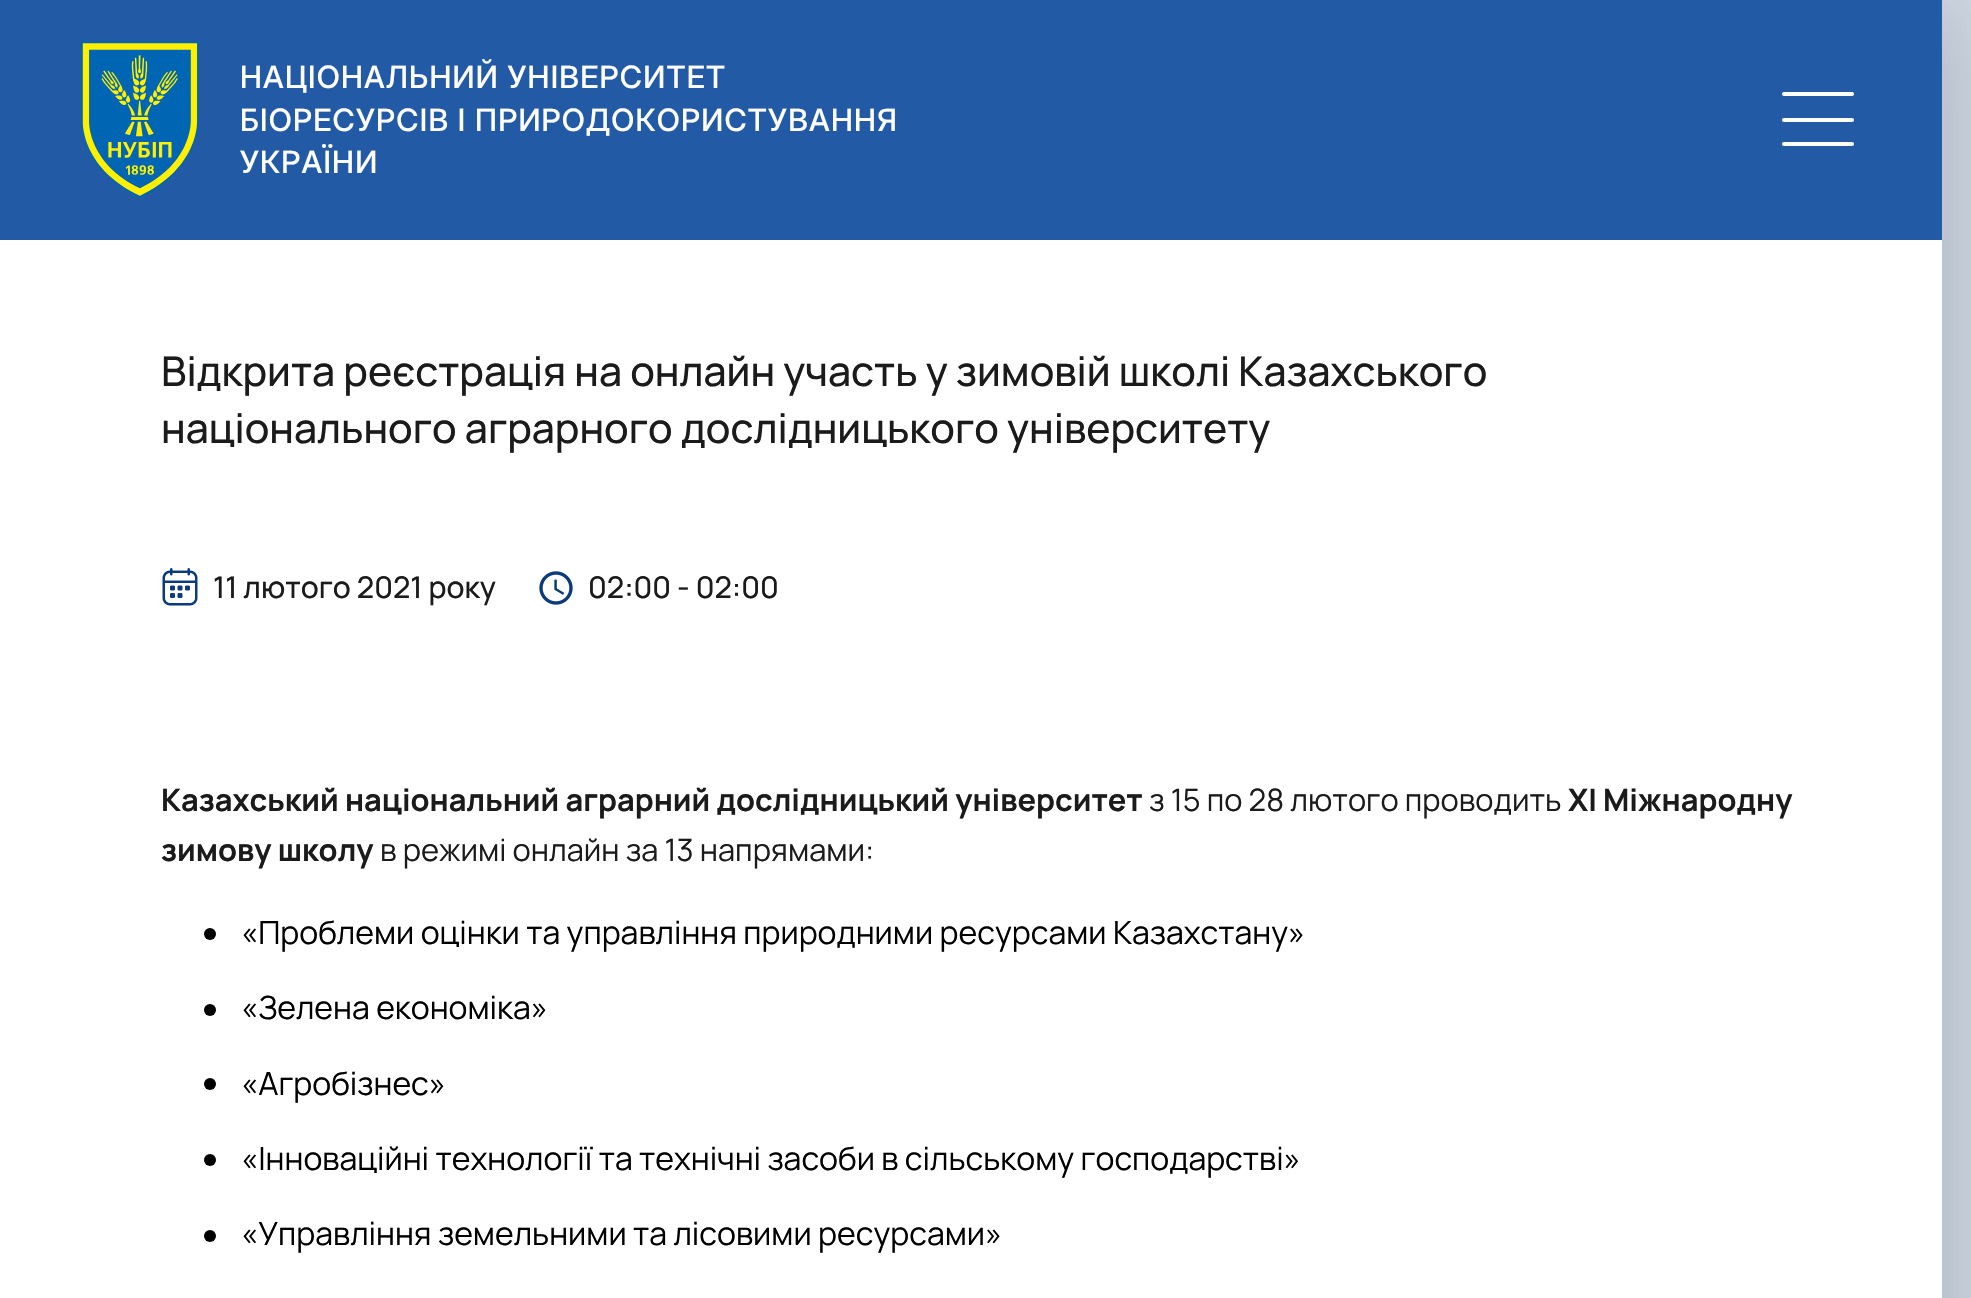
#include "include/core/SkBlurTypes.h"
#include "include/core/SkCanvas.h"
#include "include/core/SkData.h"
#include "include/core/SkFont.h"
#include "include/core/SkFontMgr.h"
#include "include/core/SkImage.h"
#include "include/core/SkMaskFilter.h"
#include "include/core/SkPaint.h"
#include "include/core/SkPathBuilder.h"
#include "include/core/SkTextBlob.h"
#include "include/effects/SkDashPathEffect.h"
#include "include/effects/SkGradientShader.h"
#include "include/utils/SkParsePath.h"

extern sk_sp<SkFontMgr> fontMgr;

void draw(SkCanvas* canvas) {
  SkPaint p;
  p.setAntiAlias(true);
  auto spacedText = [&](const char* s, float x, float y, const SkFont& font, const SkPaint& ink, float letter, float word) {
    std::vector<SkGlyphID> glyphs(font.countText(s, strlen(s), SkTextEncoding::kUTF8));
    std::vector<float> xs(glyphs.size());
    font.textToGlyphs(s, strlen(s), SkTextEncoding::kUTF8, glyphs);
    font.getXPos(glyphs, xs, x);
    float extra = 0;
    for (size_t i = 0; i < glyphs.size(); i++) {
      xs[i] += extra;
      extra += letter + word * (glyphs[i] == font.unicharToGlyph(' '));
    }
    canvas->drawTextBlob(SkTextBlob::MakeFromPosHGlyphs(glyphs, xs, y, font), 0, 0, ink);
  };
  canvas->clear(SkColorSetRGB(208, 217, 229));
  p.setColor(SkColorSetARGB(51, 0, 0, 0));
  p.setMaskFilter(SkMaskFilter::MakeBlur(kNormal_SkBlurStyle, 50));
  canvas->drawRect(SkRect::MakeLTRB(0, 0, 1942, 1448), p);
  p.setMaskFilter(nullptr);
  p.setColor(SkColorSetRGB(35, 90, 166));
  canvas->drawRect(SkRect::MakeLTRB(0, 0, 1942, 240), p);
  canvas->drawImageRect(SkImages::DeferredFromEncodedData(SkData::MakeFromFileName("images/1.png")), SkRect::MakeLTRB(81, 41, 199, 198), SkSamplingOptions());
  p.setColor(SK_ColorWHITE);
  canvas->drawRoundRect(SkRect::MakeLTRB(1782, 92, 1854, 96), 2, 2, p);
  canvas->drawRoundRect(SkRect::MakeLTRB(1782, 118, 1854, 122), 2, 2, p);
  canvas->drawRoundRect(SkRect::MakeLTRB(1782, 142, 1854, 146), 2, 2, p);
  canvas->drawRect(SkRect::MakeLTRB(0, 240, 1942, 1298), p);
  canvas->drawImageRect(SkImages::DeferredFromEncodedData(SkData::MakeFromFileName("images/2.png")), SkRect::MakeLTRB(162, 568, 198, 606), SkSamplingOptions());
  canvas->drawImageRect(SkImages::DeferredFromEncodedData(SkData::MakeFromFileName("images/3.png")), SkRect::MakeLTRB(539, 571, 573, 605), SkSamplingOptions());
  p.setColor(SK_ColorBLACK);
  canvas->drawCircle(210, 934, 6, p);
  canvas->drawCircle(210, 1010, 6, p);
  canvas->drawCircle(210, 1084, 6, p);
  canvas->drawCircle(210, 1160, 6, p);
  canvas->drawCircle(210, 1236, 6, p);
  SkFont font1(fontMgr->matchFamilyStyle("Inter Display", SkFontStyle(500, SkFontStyle::kNormal_Width, SkFontStyle::kUpright_Slant)), 30.7f);
  font1.setSubpixel(true);
  p.setColor(SK_ColorWHITE);
  spacedText("НАЦІОНАЛЬНИЙ УНІВЕРСИТЕТ", 240, 88, font1, p, 1.25f, 0);
  spacedText("БІОРЕСУРСІВ І ПРИРОДОКОРИСТУВАННЯ", 240, 131, font1, p, 1.25f, 0);
  spacedText("УКРАЇНИ", 240, 173, font1, p, 1.25f, 0);
  SkFont font2(fontMgr->matchFamilyStyle("Manrope", SkFontStyle(500, SkFontStyle::kNormal_Width, SkFontStyle::kUpright_Slant)), 41);
  font2.setSubpixel(true);
  p.setColor(SkColorSetRGB(27, 27, 27));
  canvas->drawString("Відкрита реєстрація на онлайн участь у зимовій школі Казахського", 161, 386, font2, p);
  canvas->drawString("національного аграрного дослідницького університету", 161, 443, font2, p);
  SkFont font3(fontMgr->matchFamilyStyle("Manrope", SkFontStyle(500, SkFontStyle::kNormal_Width, SkFontStyle::kUpright_Slant)), 30);
  font3.setSubpixel(true);
  canvas->drawString("11 лютого 2021 року", 213, 598, font3, p);
  canvas->drawString("02:00 - 02:00", 588, 598, font3, p);
  SkFont font4(fontMgr->matchFamilyStyle("Manrope", SkFontStyle::Bold()), 30.8f);
  font4.setSubpixel(true);
  canvas->drawString("Казахський національний аграрний дослідницький університет", 161, 811, font4, p);
  SkFont font5(fontMgr->matchFamilyStyle("Manrope", SkFontStyle::Normal()), 30.8f);
  font5.setSubpixel(true);
  canvas->drawString("з 15 по 28 лютого проводить", 1149, 811, font5, p);
  canvas->drawString("XI Міжнародну", 1568, 811, font4, p);
  canvas->drawString("зимову школу", 161, 861, font4, p);
  canvas->drawString("в режимі онлайн за 13 напрямами:", 380, 861, font5, p);
  SkFont font6(fontMgr->matchFamilyStyle("Manrope", SkFontStyle::Normal()), 32);
  font6.setSubpixel(true);
  p.setColor(SK_ColorBLACK);
  canvas->drawString("«Проблеми оцінки та управління природними ресурсами Казахстану»", 241, 944, font6, p);
  canvas->drawString("«Зелена економіка»", 241, 1019, font6, p);
  canvas->drawString("«Агробізнес»", 241, 1095, font6, p);
  canvas->drawString("«Інноваційні технології та технічні засоби в сільському господарстві»", 241, 1170, font6, p);
  canvas->drawString("«Управління земельними та лісовими ресурсами»", 241, 1245, font6, p);
}
